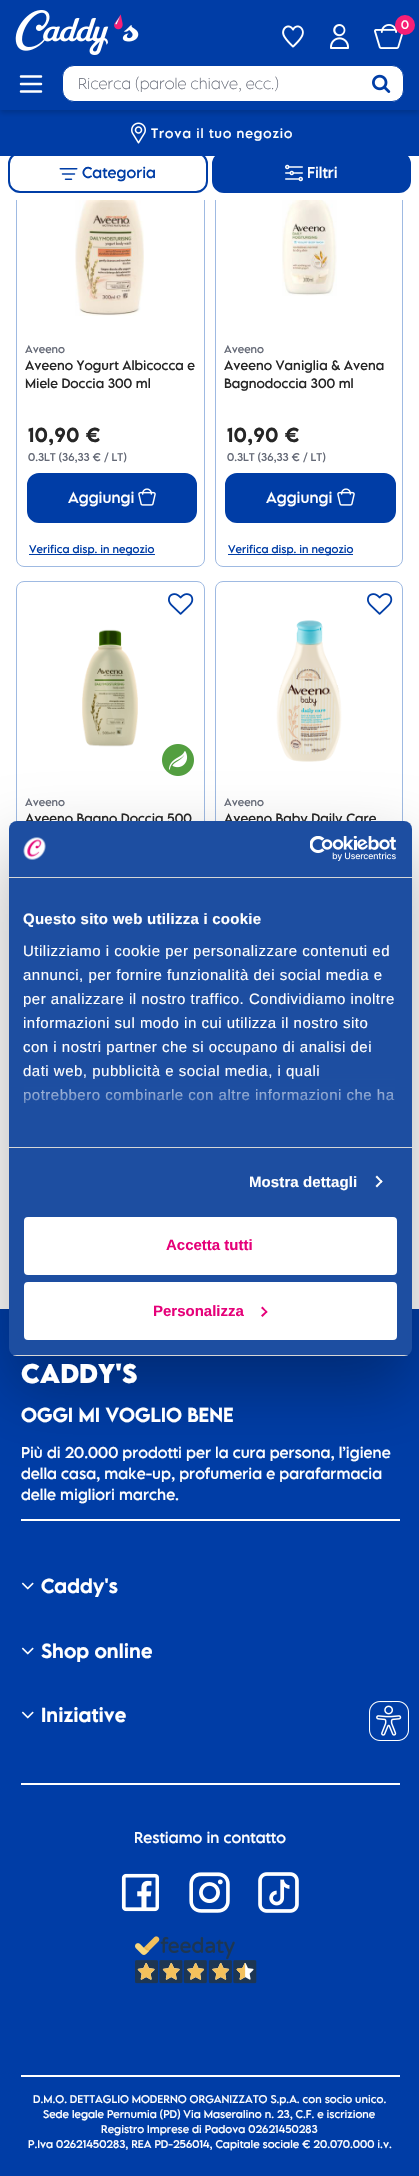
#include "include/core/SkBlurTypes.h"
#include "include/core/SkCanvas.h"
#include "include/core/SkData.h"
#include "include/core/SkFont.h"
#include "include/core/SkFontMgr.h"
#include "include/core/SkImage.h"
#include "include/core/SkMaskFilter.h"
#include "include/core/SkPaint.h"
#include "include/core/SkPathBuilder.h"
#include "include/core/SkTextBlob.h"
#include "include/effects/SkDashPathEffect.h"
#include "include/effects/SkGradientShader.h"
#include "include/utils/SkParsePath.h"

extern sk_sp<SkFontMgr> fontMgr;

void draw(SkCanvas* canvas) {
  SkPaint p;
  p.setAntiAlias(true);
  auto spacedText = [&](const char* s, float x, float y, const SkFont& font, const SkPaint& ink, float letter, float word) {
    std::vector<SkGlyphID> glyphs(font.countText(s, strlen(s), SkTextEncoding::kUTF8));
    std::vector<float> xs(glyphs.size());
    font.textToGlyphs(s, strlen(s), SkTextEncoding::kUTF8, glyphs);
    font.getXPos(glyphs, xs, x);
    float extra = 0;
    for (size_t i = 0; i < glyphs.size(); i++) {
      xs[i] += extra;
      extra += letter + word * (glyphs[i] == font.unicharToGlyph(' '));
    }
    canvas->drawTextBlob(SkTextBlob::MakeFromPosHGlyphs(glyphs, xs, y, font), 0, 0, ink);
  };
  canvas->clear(SK_ColorWHITE);
  p.setStyle(SkPaint::kStroke_Style);
  p.setStrokeWidth(1);
  p.setColor(SkColorSetRGB(159, 186, 226));
  canvas->drawRoundRect(SkRect::MakeLTRB(16.5f, 128.5f, 204.5f, 566.5f), 7.5f, 7.5f, p);
  canvas->drawRoundRect(SkRect::MakeLTRB(215.5f, 128.5f, 402.5f, 566.5f), 7.5f, 7.5f, p);
  p.setStyle(SkPaint::kFill_Style);
  p.setColor(SK_ColorWHITE);
  canvas->drawRect(SkRect::MakeLTRB(16, 156, 403, 200), p);
  p.setStyle(SkPaint::kStroke_Style);
  p.setStrokeWidth(2);
  p.setColor(SkColorSetRGB(0, 61, 166));
  canvas->drawRoundRect(SkRect::MakeLTRB(9, 153, 207, 192), 11, 11, p);
  p.setStyle(SkPaint::kFill_Style);
  canvas->drawRoundRect(SkRect::MakeLTRB(213, 153, 410, 192), 11, 11, p);
  p.setStyle(SkPaint::kStroke_Style);
  canvas->drawRoundRect(SkRect::MakeLTRB(213, 153, 410, 192), 11, 11, p);
  p.setStyle(SkPaint::kFill_Style);
  canvas->drawRect(SkRect::MakeLTRB(0, 110, 419, 156), p);
  p.setColor(SkColorSetARGB(41, 0, 0, 0));
  p.setMaskFilter(SkMaskFilter::MakeBlur(kNormal_SkBlurStyle, 2.5f));
  canvas->drawRect(SkRect::MakeLTRB(0, 3, 419, 113), p);
  p.setMaskFilter(nullptr);
  p.setColor(SkColorSetRGB(0, 61, 166));
  canvas->drawRect(SkRect::MakeLTRB(0, 0, 419, 110), p);
  canvas->drawImageRect(SkImages::DeferredFromEncodedData(SkData::MakeFromFileName("images/1.png")), SkRect::MakeLTRB(15, 10, 139, 55), SkSamplingOptions());
  canvas->drawImageRect(SkImages::DeferredFromEncodedData(SkData::MakeFromFileName("images/2.png")), SkRect::MakeLTRB(282, 25, 304, 48), SkSamplingOptions());
  canvas->drawImageRect(SkImages::DeferredFromEncodedData(SkData::MakeFromFileName("images/3.png")), SkRect::MakeLTRB(330, 24, 349, 49), SkSamplingOptions());
  canvas->drawImageRect(SkImages::DeferredFromEncodedData(SkData::MakeFromFileName("images/4.png")), SkRect::MakeLTRB(374, 24, 404, 49), SkSamplingOptions());
  p.setColor(SkColorSetRGB(248, 31, 118));
  canvas->drawCircle(405, 25, 10, p);
  p.setStyle(SkPaint::kStroke_Style);
  p.setStrokeWidth(2.5f);
  p.setStrokeCap(SkPaint::kRound_Cap);
  p.setColor(SK_ColorWHITE);
  canvas->drawPath(SkPathBuilder().moveTo(21, 76.5f).lineTo(41, 76.5f).moveTo(21, 84).lineTo(41, 84).moveTo(21, 91.5f).lineTo(41, 91.5f).detach(), p);
  p.setStyle(SkPaint::kFill_Style);
  canvas->drawRoundRect(SkRect::MakeLTRB(62.5f, 65.5f, 403.5f, 101.5f), 11.5f, 11.5f, p);
  p.setStyle(SkPaint::kStroke_Style);
  p.setStrokeWidth(1);
  p.setStrokeCap(SkPaint::kButt_Cap);
  p.setColor(SkColorSetRGB(0, 61, 166));
  canvas->drawRoundRect(SkRect::MakeLTRB(62.5f, 65.5f, 403.5f, 101.5f), 11.5f, 11.5f, p);
  canvas->drawImageRect(SkImages::DeferredFromEncodedData(SkData::MakeFromFileName("images/5.png")), SkRect::MakeLTRB(372, 74, 391, 93), SkSamplingOptions());
  canvas->drawImageRect(SkImages::DeferredFromEncodedData(SkData::MakeFromFileName("images/6.png")), SkRect::MakeLTRB(131, 122, 146, 144), SkSamplingOptions());
  canvas->drawImageRect(SkImages::DeferredFromEncodedData(SkData::MakeFromFileName("images/7.png")), SkRect::MakeLTRB(59, 168, 78, 180), SkSamplingOptions());
  canvas->drawImageRect(SkImages::DeferredFromEncodedData(SkData::MakeFromFileName("images/8.png")), SkRect::MakeLTRB(285, 164, 303, 182), SkSamplingOptions());
  canvas->drawImageRect(SkImages::DeferredFromEncodedData(SkData::MakeFromFileName("images/9.png")), SkRect::MakeLTRB(75, 200, 144, 316), SkSamplingOptions());
  p.setStyle(SkPaint::kFill_Style);
  canvas->drawRoundRect(SkRect::MakeLTRB(28, 474, 196, 522), 11, 11, p);
  p.setStyle(SkPaint::kStroke_Style);
  p.setStrokeWidth(2);
  canvas->drawRoundRect(SkRect::MakeLTRB(28, 474, 196, 522), 11, 11, p);
  canvas->drawImageRect(SkImages::DeferredFromEncodedData(SkData::MakeFromFileName("images/10.png")), SkRect::MakeLTRB(138, 488, 156, 506), SkSamplingOptions());
  p.setStyle(SkPaint::kFill_Style);
  canvas->drawRect(SkRect::MakeLTRB(29, 554, 155, 555), p);
  canvas->drawImageRect(SkImages::DeferredFromEncodedData(SkData::MakeFromFileName("images/11.png")), SkRect::MakeLTRB(282, 200, 337, 296), SkSamplingOptions());
  canvas->drawRoundRect(SkRect::MakeLTRB(226, 474, 395, 522), 11, 11, p);
  p.setStyle(SkPaint::kStroke_Style);
  canvas->drawRoundRect(SkRect::MakeLTRB(226, 474, 395, 522), 11, 11, p);
  canvas->drawImageRect(SkImages::DeferredFromEncodedData(SkData::MakeFromFileName("images/10.png")), SkRect::MakeLTRB(337, 488, 355, 506), SkSamplingOptions());
  p.setStyle(SkPaint::kFill_Style);
  canvas->drawRect(SkRect::MakeLTRB(228, 554, 353, 555), p);
  p.setStyle(SkPaint::kStroke_Style);
  p.setStrokeWidth(1);
  p.setColor(SkColorSetRGB(159, 186, 226));
  canvas->drawRoundRect(SkRect::MakeLTRB(16.5f, 581.5f, 204.5f, 1008.5f), 7.5f, 7.5f, p);
  canvas->drawImageRect(SkImages::DeferredFromEncodedData(SkData::MakeFromFileName("images/12.png")), SkRect::MakeLTRB(82, 629, 138, 747), SkSamplingOptions());
  canvas->drawImageRect(SkImages::DeferredFromEncodedData(SkData::MakeFromFileName("images/13.png")), SkRect::MakeLTRB(162, 744, 194, 776), SkSamplingOptions());
  canvas->drawImageRect(SkImages::DeferredFromEncodedData(SkData::MakeFromFileName("images/14.png")), SkRect::MakeLTRB(168, 593, 194, 615), SkSamplingOptions());
  canvas->drawRoundRect(SkRect::MakeLTRB(215.5f, 581.5f, 402.5f, 1008.5f), 7.5f, 7.5f, p);
  canvas->drawImageRect(SkImages::DeferredFromEncodedData(SkData::MakeFromFileName("images/15.png")), SkRect::MakeLTRB(276, 620, 342, 762), SkSamplingOptions());
  canvas->drawImageRect(SkImages::DeferredFromEncodedData(SkData::MakeFromFileName("images/14.png")), SkRect::MakeLTRB(367, 593, 393, 615), SkSamplingOptions());
  p.setStyle(SkPaint::kFill_Style);
  p.setColor(SkColorSetRGB(0, 61, 166));
  canvas->drawRect(SkRect::MakeLTRB(0, 1309, 419, 2176), p);
  p.setColor(SK_ColorWHITE);
  canvas->drawRect(SkRect::MakeLTRB(21, 1519, 400, 1521), p);
  canvas->drawImageRect(SkImages::DeferredFromEncodedData(SkData::MakeFromFileName("images/16.png")), SkRect::MakeLTRB(21, 1582, 34, 1590), SkSamplingOptions());
  canvas->drawImageRect(SkImages::DeferredFromEncodedData(SkData::MakeFromFileName("images/16.png")), SkRect::MakeLTRB(21, 1647, 34, 1655), SkSamplingOptions());
  canvas->drawImageRect(SkImages::DeferredFromEncodedData(SkData::MakeFromFileName("images/16.png")), SkRect::MakeLTRB(21, 1711, 34, 1719), SkSamplingOptions());
  canvas->drawRect(SkRect::MakeLTRB(21, 1783, 400, 1785), p);
  canvas->drawImageRect(SkImages::DeferredFromEncodedData(SkData::MakeFromFileName("images/17.png")), SkRect::MakeLTRB(121, 1873, 159, 1912), SkSamplingOptions());
  canvas->drawImageRect(SkImages::DeferredFromEncodedData(SkData::MakeFromFileName("images/18.png")), SkRect::MakeLTRB(189, 1872, 230, 1913), SkSamplingOptions());
  canvas->drawImageRect(SkImages::DeferredFromEncodedData(SkData::MakeFromFileName("images/19.png")), SkRect::MakeLTRB(258, 1872, 299, 1913), SkSamplingOptions());
  canvas->drawImageRect(SkImages::DeferredFromEncodedData(SkData::MakeFromFileName("images/20.png")), SkRect::MakeLTRB(135, 1936, 235, 1960), SkSamplingOptions());
  canvas->drawImageRect(SkImages::DeferredFromEncodedData(SkData::MakeFromFileName("images/21.png")), SkRect::MakeLTRB(135, 1960, 257, 1984), SkSamplingOptions());
  canvas->drawRect(SkRect::MakeLTRB(21, 2075, 400, 2077), p);
  p.setColor(SkColorSetARGB(77, 0, 0, 0));
  p.setMaskFilter(SkMaskFilter::MakeBlur(kNormal_SkBlurStyle, 34));
  canvas->drawRoundRect(SkRect::MakeLTRB(9, 853, 412, 1388), 8, 8, p);
  p.setMaskFilter(nullptr);
  canvas->drawImageRect(SkImages::DeferredFromEncodedData(SkData::MakeFromFileName("images/24.png")), SkRect::MakeLTRB(369, 1701, 409, 1741), SkSamplingOptions());
  SkFont font1(fontMgr->matchFamilyStyle("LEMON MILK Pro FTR", SkFontStyle::Normal()), 11);
  font1.setSubpixel(true);
  p.setColor(SK_ColorWHITE);
  canvas->drawString("0", 401, 29, font1, p);
  SkFont font2(fontMgr->matchFamilyStyle("LEMON MILK Pro FTR", SkFontStyle(200, SkFontStyle::kNormal_Width, SkFontStyle::kUpright_Slant)), 14);
  font2.setSubpixel(true);
  p.setColor(SkColorSetRGB(100, 105, 118));
  canvas->drawString("Ricerca (parole chiave, ecc.)", 78, 89, font2, p);
  SkFont font3(fontMgr->matchFamilyStyle("LEMON MILK Pro FTR", SkFontStyle::Normal()), 12);
  font3.setSubpixel(true);
  p.setColor(SK_ColorWHITE);
  spacedText("Trova il tuo negozio", 151, 138, font3, p, 0.9f, 0);
  SkFont font4(fontMgr->matchFamilyStyle("LEMON MILK Pro FTR", SkFontStyle::Normal()), 14);
  font4.setSubpixel(true);
  p.setColor(SkColorSetRGB(0, 61, 166));
  canvas->drawString("Categoria", 82, 178, font4, p);
  p.setColor(SK_ColorWHITE);
  canvas->drawString("Filtri", 307, 178, font4, p);
  SkFont font5(fontMgr->matchFamilyStyle("LEMON MILK Pro FTR", SkFontStyle::Normal()), 10);
  font5.setSubpixel(true);
  p.setColor(SkColorSetRGB(100, 105, 118));
  canvas->drawString("Aveeno", 25, 353, font5, p);
  p.setColor(SkColorSetRGB(38, 38, 38));
  canvas->drawString("Aveeno Yogurt Albicocca e", 25, 370, font3, p);
  canvas->drawString("Miele Doccia 300 ml", 25, 388, font3, p);
  SkFont font6(fontMgr->matchFamilyStyle("LEMON MILK Pro FTR", SkFontStyle(500, SkFontStyle::kNormal_Width, SkFontStyle::kUpright_Slant)), 18);
  font6.setSubpixel(true);
  spacedText("10,90 €", 28, 442, font6, p, 0.5f, 0);
  p.setColor(SkColorSetRGB(100, 105, 118));
  canvas->drawString("0.3LT (36,33 € / LT)", 28, 461, font5, p);
  p.setColor(SK_ColorWHITE);
  canvas->drawString("Aggiungi", 68, 503, font4, p);
  p.setColor(SkColorSetRGB(0, 61, 166));
  canvas->drawString("Verifica disp. in negozio", 29, 553, font5, p);
  p.setColor(SkColorSetRGB(100, 105, 118));
  canvas->drawString("Aveeno", 224, 353, font5, p);
  p.setColor(SkColorSetRGB(38, 38, 38));
  canvas->drawString("Aveeno Vaniglia & Avena", 224, 370, font3, p);
  canvas->drawString("Bagnodoccia 300 ml", 224, 388, font3, p);
  spacedText("10,90 €", 227, 442, font6, p, 0.5f, 0);
  p.setColor(SkColorSetRGB(100, 105, 118));
  canvas->drawString("0.3LT (36,33 € / LT)", 227, 461, font5, p);
  p.setColor(SK_ColorWHITE);
  canvas->drawString("Aggiungi", 266, 503, font4, p);
  p.setColor(SkColorSetRGB(0, 61, 166));
  canvas->drawString("Verifica disp. in negozio", 228, 553, font5, p);
  p.setColor(SkColorSetRGB(100, 105, 118));
  canvas->drawString("Aveeno", 25, 806, font5, p);
  p.setColor(SkColorSetRGB(38, 38, 38));
  canvas->drawString("Aveeno Bagno Doccia 500", 25, 823, font3, p);
  p.setColor(SkColorSetRGB(100, 105, 118));
  canvas->drawString("Aveeno", 224, 806, font5, p);
  p.setColor(SkColorSetRGB(38, 38, 38));
  canvas->drawString("Aveeno Baby Daily Care", 224, 823, font3, p);
  SkFont font7(fontMgr->matchFamilyStyle("LEMON MILK Pro FTR", SkFontStyle::Bold()), 24);
  font7.setSubpixel(true);
  p.setColor(SK_ColorWHITE);
  canvas->drawString("CADDY'S", 21, 1383, font7, p);
  canvas->drawString("OGGI MI VOGLIO BENE", 21, 1422, font6, p);
  canvas->drawString("Più di 20.000 prodotti per la cura persona, l’igiene", 21, 1458, font4, p);
  canvas->drawString("della casa, make-up, profumeria e parafarmacia", 21, 1479, font4, p);
  canvas->drawString("delle migliori marche.", 21, 1500, font4, p);
  canvas->drawString("Caddy's", 41, 1593, font6, p);
  canvas->drawString("Shop online", 41, 1658, font6, p);
  canvas->drawString("Iniziative", 41, 1722, font6, p);
  canvas->drawString("Restiamo in contatto", 134, 1843, font4, p);
  canvas->drawString("D.M.O. DETTAGLIO MODERNO ORGANIZZATO S.p.A. con socio unico.", 33, 2103, font5, p);
  canvas->drawString("Sede legale Pernumia (PD) Via Maseralino n. 23, C.F. e iscrizione", 43, 2118, font5, p);
  canvas->drawString("Registro Imprese di Padova 02621450283", 101, 2133, font5, p);
  canvas->drawString("P.Iva 02621450283, REA PD-256014, Capitale sociale € 20.070.000 i.v.", 28, 2148, font5, p);
  p.setColor(SkColorSetRGB(29, 78, 161));
  canvas->drawRoundRect(SkRect::MakeLTRB(9, 821, 412, 1356), 8, 8, p);
  p.setColor(SkColorSetRGB(214, 214, 214));
  canvas->drawRect(SkRect::MakeLTRB(9, 877, 412, 878), p);
  canvas->drawImageRect(SkImages::DeferredFromEncodedData(SkData::MakeFromFileName("images/22.png")), SkRect::MakeLTRB(23, 837, 46, 860), SkSamplingOptions());
  canvas->drawImageRect(SkImages::DeferredFromEncodedData(SkData::MakeFromFileName("images/23.png")), SkRect::MakeLTRB(310, 836, 397, 861), SkSamplingOptions());
  canvas->drawRect(SkRect::MakeLTRB(9, 1147, 412, 1148), p);
  SkFont font8(fontMgr->matchFamilyStyle("Liberation Sans", SkFontStyle::Bold()), 15);
  font8.setSubpixel(true);
  p.setColor(SK_ColorWHITE);
  spacedText("Questo sito web utilizza i cookie", 23, 924, font8, p, 0.25f, 0);
  SkFont font9(fontMgr->matchFamilyStyle("Liberation Sans", SkFontStyle::Normal()), 15);
  font9.setSubpixel(true);
  spacedText("Utilizziamo i cookie per personalizzare contenuti ed", 23, 956, font9, p, 0.5f, 0);
  spacedText("annunci, per fornire funzionalità dei social media e", 23, 980, font9, p, 0.5f, 0);
  spacedText("per analizzare il nostro traffico. Condividiamo inoltre", 23, 1004, font9, p, 0.5f, 0);
  spacedText("informazioni sul modo in cui utilizza il nostro sito", 23, 1028, font9, p, 0.5f, 0);
  spacedText("con i nostri partner che si occupano di analisi dei", 23, 1052, font9, p, 0.5f, 0);
  spacedText("dati web, pubblicità e social media, i quali", 23, 1076, font9, p, 0.5f, 0);
  spacedText("potrebbero combinarle con altre informazioni che ha", 23, 1100, font9, p, 0.5f, 0);
  {
    const SkColor colors[] = {SkColorSetRGB(29, 78, 161), SkColorSetARGB(204, 29, 78, 161), SkColorSetARGB(0, 29, 78, 161)};
    const float stops[] = {0, 0.5f, 1};
    const SkPoint ends[] = {{204, 1147}, {204, 1072}};
    p.setShader(SkGradientShader::MakeLinear(ends, colors, stops, 3, SkTileMode::kClamp));
    p.setAlpha(255);
  }
  canvas->drawRect(SkRect::MakeLTRB(24, 1073, 395, 1104), p);
  p.setShader(nullptr);
  p.setColor(SK_ColorWHITE);
  spacedText("Mostra dettagli", 249, 1187, font8, p, 0.1f, 0);
  canvas->drawPath(SkPathBuilder().moveTo(377, 1175.5f).lineTo(382.5f, 1181.5f).lineTo(381.5f, 1183).lineTo(375.5f, 1177).close().detach(), p);
  canvas->drawPath(SkPathBuilder().moveTo(381.5f, 1180).lineTo(382.5f, 1181.5f).lineTo(377, 1187.5f).lineTo(375.5f, 1186).close().detach(), p);
  canvas->save();
  canvas->clipPath(SkPathBuilder().moveTo(17, 821).lineTo(404, 821).cubicTo(408.5f, 821, 412, 824.5f, 412, 829).lineTo(412, 1348).cubicTo(412, 1352.5f, 408.5f, 1356, 404, 1356).lineTo(17, 1356).cubicTo(12.5f, 1356, 9, 1352.5f, 9, 1348).lineTo(9, 829).cubicTo(9, 824.5f, 12.5f, 821, 17, 821).close().detach(), true);
  p.setColor(SkColorSetRGB(214, 214, 214));
  canvas->drawRect(SkRect::MakeLTRB(9, 1355, 412, 1356), p);
  canvas->restore();
  p.setColor(SK_ColorWHITE);
  canvas->drawRoundRect(SkRect::MakeLTRB(25, 1218, 396, 1274), 3, 3, p);
  p.setStyle(SkPaint::kStroke_Style);
  p.setStrokeWidth(2);
  canvas->drawRoundRect(SkRect::MakeLTRB(25, 1218, 396, 1274), 3, 3, p);
  p.setStyle(SkPaint::kFill_Style);
  p.setColor(SkColorSetRGB(229, 1, 121));
  canvas->drawString("Accetta tutti", 166, 1250, font8, p);
  p.setColor(SK_ColorWHITE);
  canvas->drawRoundRect(SkRect::MakeLTRB(25, 1283, 396, 1339), 3, 3, p);
  p.setStyle(SkPaint::kStroke_Style);
  canvas->drawRoundRect(SkRect::MakeLTRB(25, 1283, 396, 1339), 3, 3, p);
  p.setStyle(SkPaint::kFill_Style);
  p.setColor(SkColorSetRGB(229, 1, 121));
  canvas->drawString("Personalizza", 153, 1316, font8, p);
  canvas->drawPath(SkPathBuilder().moveTo(262.5f, 1306.5f).lineTo(267.5f, 1312).lineTo(266.5f, 1313).lineTo(261, 1308).close().detach(), p);
  canvas->drawPath(SkPathBuilder().moveTo(266.5f, 1310.5f).lineTo(267.5f, 1312).lineTo(262.5f, 1317).lineTo(261, 1315.5f).close().detach(), p);
}
